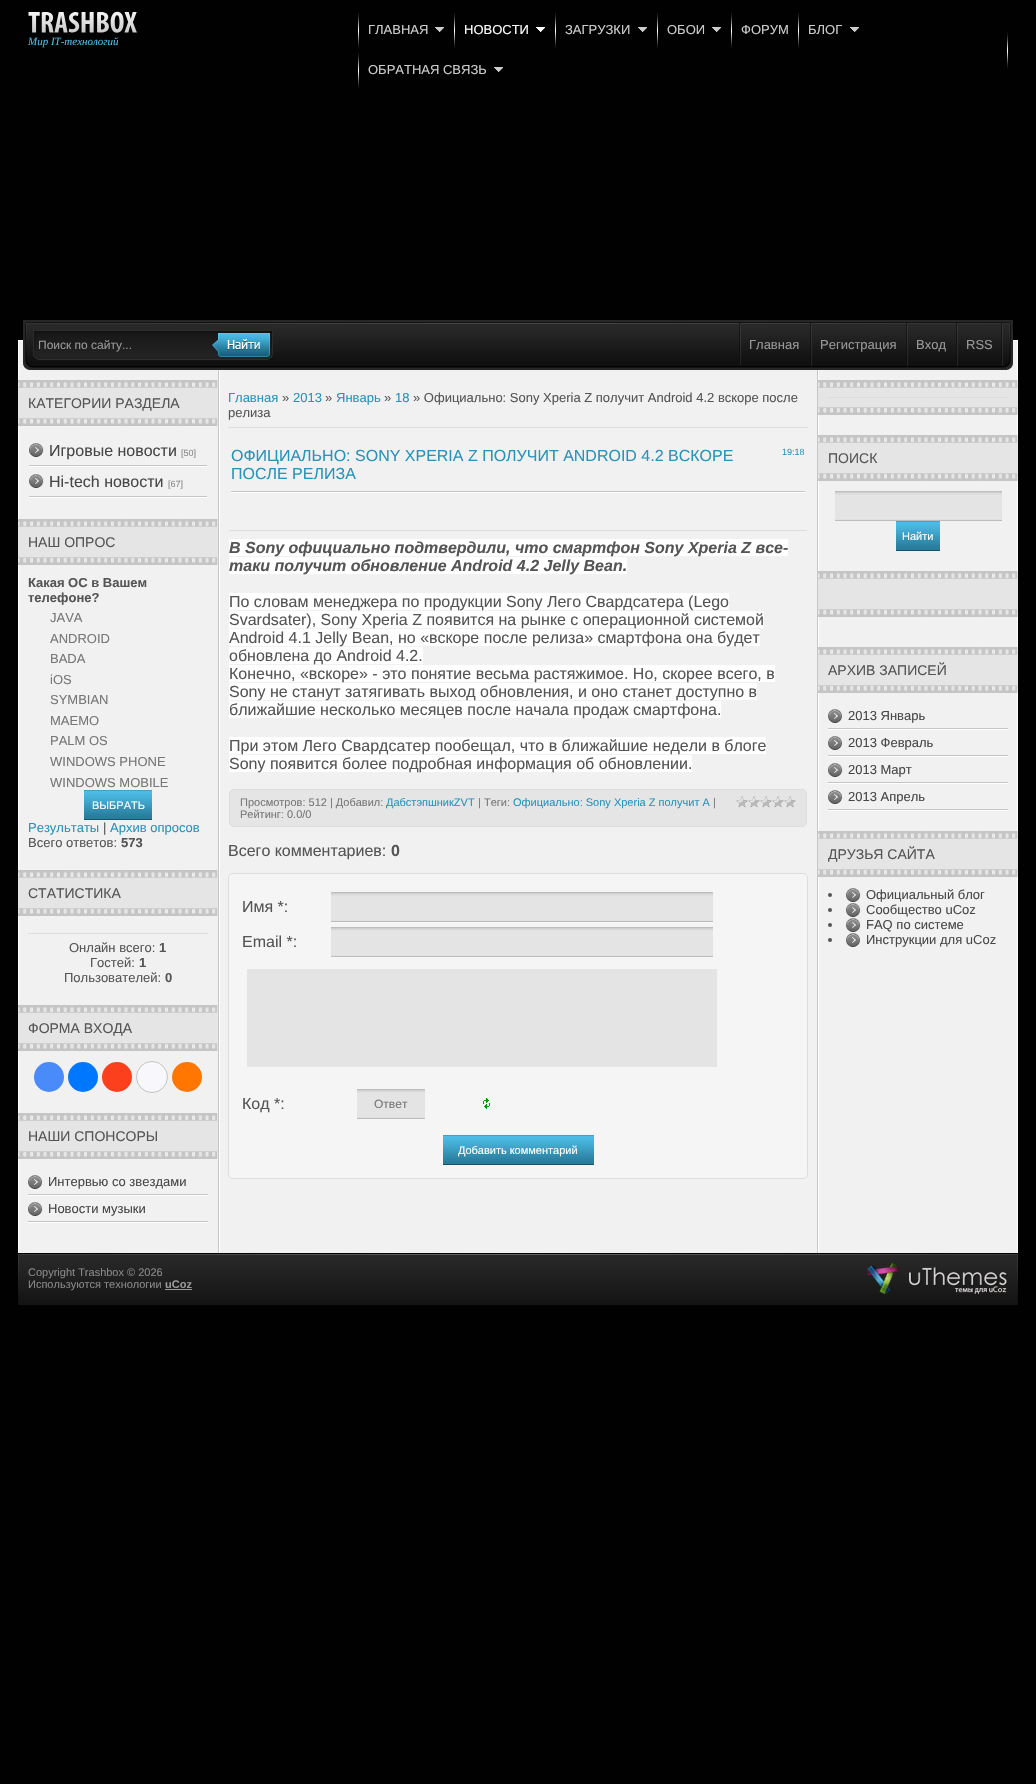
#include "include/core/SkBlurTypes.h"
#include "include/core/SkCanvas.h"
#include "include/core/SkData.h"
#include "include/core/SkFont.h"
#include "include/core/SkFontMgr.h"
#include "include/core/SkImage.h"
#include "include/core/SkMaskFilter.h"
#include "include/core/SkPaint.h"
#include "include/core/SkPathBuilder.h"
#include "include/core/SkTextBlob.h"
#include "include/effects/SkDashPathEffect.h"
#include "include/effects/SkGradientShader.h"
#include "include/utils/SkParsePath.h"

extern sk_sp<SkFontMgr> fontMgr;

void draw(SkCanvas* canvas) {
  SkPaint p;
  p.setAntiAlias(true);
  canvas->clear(SkColorSetRGB(1, 1, 1));
  canvas->drawImageRect(SkImages::DeferredFromEncodedData(SkData::MakeFromFileName("images/1.png")), SkRect::MakeLTRB(28, 11, 137, 33), SkSamplingOptions());
  canvas->drawImageRect(SkImages::DeferredFromEncodedData(SkData::MakeFromFileName("images/2.png")), SkRect::MakeLTRB(1007, 32, 1008, 69), SkSamplingOptions());
  canvas->drawImageRect(SkImages::DeferredFromEncodedData(SkData::MakeFromFileName("images/2.png")), SkRect::MakeLTRB(358, 12, 359, 49), SkSamplingOptions());
  canvas->drawImageRect(SkImages::DeferredFromEncodedData(SkData::MakeFromFileName("images/3.png")), SkRect::MakeLTRB(435, 27, 444, 32), SkSamplingOptions());
  canvas->drawImageRect(SkImages::DeferredFromEncodedData(SkData::MakeFromFileName("images/2.png")), SkRect::MakeLTRB(454, 12, 455, 49), SkSamplingOptions());
  canvas->drawImageRect(SkImages::DeferredFromEncodedData(SkData::MakeFromFileName("images/4.png")), SkRect::MakeLTRB(536, 27, 545, 32), SkSamplingOptions());
  canvas->drawImageRect(SkImages::DeferredFromEncodedData(SkData::MakeFromFileName("images/2.png")), SkRect::MakeLTRB(555, 12, 556, 49), SkSamplingOptions());
  canvas->drawImageRect(SkImages::DeferredFromEncodedData(SkData::MakeFromFileName("images/3.png")), SkRect::MakeLTRB(638, 27, 647, 32), SkSamplingOptions());
  canvas->drawImageRect(SkImages::DeferredFromEncodedData(SkData::MakeFromFileName("images/2.png")), SkRect::MakeLTRB(657, 12, 658, 49), SkSamplingOptions());
  canvas->drawImageRect(SkImages::DeferredFromEncodedData(SkData::MakeFromFileName("images/3.png")), SkRect::MakeLTRB(712, 27, 721, 32), SkSamplingOptions());
  canvas->drawImageRect(SkImages::DeferredFromEncodedData(SkData::MakeFromFileName("images/2.png")), SkRect::MakeLTRB(731, 12, 732, 49), SkSamplingOptions());
  canvas->drawImageRect(SkImages::DeferredFromEncodedData(SkData::MakeFromFileName("images/2.png")), SkRect::MakeLTRB(798, 12, 799, 49), SkSamplingOptions());
  canvas->drawImageRect(SkImages::DeferredFromEncodedData(SkData::MakeFromFileName("images/3.png")), SkRect::MakeLTRB(850, 27, 859, 32), SkSamplingOptions());
  canvas->drawImageRect(SkImages::DeferredFromEncodedData(SkData::MakeFromFileName("images/2.png")), SkRect::MakeLTRB(358, 52, 359, 89), SkSamplingOptions());
  canvas->drawImageRect(SkImages::DeferredFromEncodedData(SkData::MakeFromFileName("images/3.png")), SkRect::MakeLTRB(494, 67, 503, 72), SkSamplingOptions());
  canvas->drawImageRect(SkImages::DeferredFromEncodedData(SkData::MakeFromFileName("images/5.png")), SkRect::MakeLTRB(18, 320, 1018, 370), SkSamplingOptions());
  canvas->drawImageRect(SkImages::DeferredFromEncodedData(SkData::MakeFromFileName("images/6.png")), SkRect::MakeLTRB(33, 330, 273, 360), SkSamplingOptions());
  canvas->drawImageRect(SkImages::DeferredFromEncodedData(SkData::MakeFromFileName("images/7.png")), SkRect::MakeLTRB(1001, 323, 1003, 366), SkSamplingOptions());
  canvas->drawImageRect(SkImages::DeferredFromEncodedData(SkData::MakeFromFileName("images/7.png")), SkRect::MakeLTRB(739, 323, 741, 366), SkSamplingOptions());
  canvas->drawImageRect(SkImages::DeferredFromEncodedData(SkData::MakeFromFileName("images/7.png")), SkRect::MakeLTRB(810, 323, 812, 366), SkSamplingOptions());
  canvas->drawImageRect(SkImages::DeferredFromEncodedData(SkData::MakeFromFileName("images/7.png")), SkRect::MakeLTRB(906, 323, 908, 366), SkSamplingOptions());
  canvas->drawImageRect(SkImages::DeferredFromEncodedData(SkData::MakeFromFileName("images/7.png")), SkRect::MakeLTRB(956, 323, 958, 366), SkSamplingOptions());
  canvas->drawImageRect(SkImages::DeferredFromEncodedData(SkData::MakeFromFileName("images/8.png")), SkRect::MakeLTRB(18, 370, 1018, 1253), SkSamplingOptions());
  p.setColor(SkColorSetRGB(229, 229, 229));
  canvas->drawRect(SkRect::MakeLTRB(18, 380, 218, 426), p);
  canvas->drawImageRect(SkImages::DeferredFromEncodedData(SkData::MakeFromFileName("images/9.png")), SkRect::MakeLTRB(18, 380, 217, 388), SkSamplingOptions());
  canvas->drawImageRect(SkImages::DeferredFromEncodedData(SkData::MakeFromFileName("images/10.png")), SkRect::MakeLTRB(18, 418, 217, 426), SkSamplingOptions());
  canvas->drawImageRect(SkImages::DeferredFromEncodedData(SkData::MakeFromFileName("images/11.png")), SkRect::MakeLTRB(29, 465, 207, 467), SkSamplingOptions());
  canvas->drawImageRect(SkImages::DeferredFromEncodedData(SkData::MakeFromFileName("images/12.png")), SkRect::MakeLTRB(29, 443, 44, 457), SkSamplingOptions());
  canvas->drawImageRect(SkImages::DeferredFromEncodedData(SkData::MakeFromFileName("images/11.png")), SkRect::MakeLTRB(29, 496, 207, 498), SkSamplingOptions());
  canvas->drawImageRect(SkImages::DeferredFromEncodedData(SkData::MakeFromFileName("images/12.png")), SkRect::MakeLTRB(29, 474, 44, 488), SkSamplingOptions());
  canvas->drawRect(SkRect::MakeLTRB(18, 519, 218, 565), p);
  canvas->drawImageRect(SkImages::DeferredFromEncodedData(SkData::MakeFromFileName("images/9.png")), SkRect::MakeLTRB(18, 519, 217, 527), SkSamplingOptions());
  canvas->drawImageRect(SkImages::DeferredFromEncodedData(SkData::MakeFromFileName("images/10.png")), SkRect::MakeLTRB(18, 557, 217, 565), SkSamplingOptions());
  p.setColor(SkColorSetRGB(62, 163, 201));
  canvas->drawRect(SkRect::MakeLTRB(84, 790, 152, 791), p);
  canvas->drawImageRect(SkImages::DeferredFromEncodedData(SkData::MakeFromFileName("images/13.png")), SkRect::MakeLTRB(84, 791, 152, 820), SkSamplingOptions());
  p.setColor(SkColorSetRGB(229, 229, 229));
  canvas->drawRect(SkRect::MakeLTRB(18, 870, 218, 916), p);
  canvas->drawImageRect(SkImages::DeferredFromEncodedData(SkData::MakeFromFileName("images/9.png")), SkRect::MakeLTRB(18, 870, 217, 878), SkSamplingOptions());
  canvas->drawImageRect(SkImages::DeferredFromEncodedData(SkData::MakeFromFileName("images/10.png")), SkRect::MakeLTRB(18, 908, 217, 916), SkSamplingOptions());
  p.setColor(SkColorSetRGB(221, 221, 221));
  canvas->drawRect(SkRect::MakeLTRB(28, 933, 208, 934), p);
  p.setColor(SkColorSetRGB(229, 229, 229));
  canvas->drawRect(SkRect::MakeLTRB(18, 1005, 218, 1051), p);
  canvas->drawImageRect(SkImages::DeferredFromEncodedData(SkData::MakeFromFileName("images/9.png")), SkRect::MakeLTRB(18, 1005, 217, 1013), SkSamplingOptions());
  canvas->drawImageRect(SkImages::DeferredFromEncodedData(SkData::MakeFromFileName("images/10.png")), SkRect::MakeLTRB(18, 1043, 217, 1051), SkSamplingOptions());
  p.setColor(SkColorSetRGB(73, 139, 250));
  canvas->drawCircle(49, 1077, 15, p);
  p.setColor(SkColorSetRGB(0, 119, 255));
  canvas->drawCircle(83, 1077, 15, p);
  p.setColor(SkColorSetRGB(252, 63, 29));
  canvas->drawCircle(117, 1077, 15, p);
  p.setColor(SkColorSetRGB(248, 248, 252));
  canvas->drawCircle(152, 1077, 15.5f, p);
  p.setStyle(SkPaint::kStroke_Style);
  p.setStrokeWidth(1);
  p.setColor(SkColorSetRGB(196, 196, 196));
  canvas->drawCircle(152, 1077, 15.5f, p);
  p.setStyle(SkPaint::kFill_Style);
  p.setColor(SkColorSetRGB(255, 119, 0));
  canvas->drawCircle(187, 1077, 15, p);
  p.setColor(SkColorSetRGB(229, 229, 229));
  canvas->drawRect(SkRect::MakeLTRB(18, 1113, 218, 1159), p);
  canvas->drawImageRect(SkImages::DeferredFromEncodedData(SkData::MakeFromFileName("images/9.png")), SkRect::MakeLTRB(18, 1113, 217, 1121), SkSamplingOptions());
  canvas->drawImageRect(SkImages::DeferredFromEncodedData(SkData::MakeFromFileName("images/10.png")), SkRect::MakeLTRB(18, 1151, 217, 1159), SkSamplingOptions());
  canvas->drawImageRect(SkImages::DeferredFromEncodedData(SkData::MakeFromFileName("images/14.png")), SkRect::MakeLTRB(28, 1194, 208, 1196), SkSamplingOptions());
  canvas->drawImageRect(SkImages::DeferredFromEncodedData(SkData::MakeFromFileName("images/15.png")), SkRect::MakeLTRB(28, 1175, 42, 1189), SkSamplingOptions());
  canvas->drawImageRect(SkImages::DeferredFromEncodedData(SkData::MakeFromFileName("images/14.png")), SkRect::MakeLTRB(28, 1221, 208, 1223), SkSamplingOptions());
  canvas->drawImageRect(SkImages::DeferredFromEncodedData(SkData::MakeFromFileName("images/12.png")), SkRect::MakeLTRB(28, 1202, 43, 1216), SkSamplingOptions());
  p.setColor(SkColorSetRGB(221, 221, 221));
  canvas->drawRect(SkRect::MakeLTRB(228, 427, 808, 428), p);
  canvas->drawImageRect(SkImages::DeferredFromEncodedData(SkData::MakeFromFileName("images/16.png")), SkRect::MakeLTRB(231, 491, 805, 493), SkSamplingOptions());
  canvas->drawRect(SkRect::MakeLTRB(229, 530, 807, 531), p);
  p.setColor(SK_ColorWHITE);
  canvas->drawRect(SkRect::MakeLTRB(229, 539, 788, 556), p);
  canvas->drawRect(SkRect::MakeLTRB(229, 557, 627, 574), p);
  canvas->drawRect(SkRect::MakeLTRB(229, 593, 729, 610), p);
  canvas->drawRect(SkRect::MakeLTRB(229, 611, 764, 628), p);
  canvas->drawRect(SkRect::MakeLTRB(229, 629, 760, 646), p);
  canvas->drawRect(SkRect::MakeLTRB(229, 647, 423, 664), p);
  canvas->drawRect(SkRect::MakeLTRB(229, 665, 775, 682), p);
  canvas->drawRect(SkRect::MakeLTRB(229, 683, 757, 700), p);
  canvas->drawRect(SkRect::MakeLTRB(229, 701, 721, 718), p);
  canvas->drawRect(SkRect::MakeLTRB(229, 737, 766, 754), p);
  canvas->drawRect(SkRect::MakeLTRB(229, 755, 692, 772), p);
  p.setColor(SkColorSetRGB(229, 229, 229));
  canvas->drawRoundRect(SkRect::MakeLTRB(229.5f, 789.5f, 806.5f, 826.5f), 4.5f, 4.5f, p);
  p.setStyle(SkPaint::kStroke_Style);
  p.setColor(SkColorSetRGB(221, 221, 221));
  canvas->drawRoundRect(SkRect::MakeLTRB(229.5f, 789.5f, 806.5f, 826.5f), 4.5f, 4.5f, p);
  canvas->drawImageRect(SkImages::DeferredFromEncodedData(SkData::MakeFromFileName("images/17.png")), SkRect::MakeLTRB(736, 796, 796, 808), SkSamplingOptions());
  p.setStyle(SkPaint::kFill_Style);
  p.setColor(SkColorSetRGB(245, 245, 245));
  canvas->drawRoundRect(SkRect::MakeLTRB(228.5f, 873.5f, 807.5f, 1178.5f), 4.5f, 4.5f, p);
  p.setStyle(SkPaint::kStroke_Style);
  p.setColor(SkColorSetRGB(221, 221, 221));
  canvas->drawRoundRect(SkRect::MakeLTRB(228.5f, 873.5f, 807.5f, 1178.5f), 4.5f, 4.5f, p);
  canvas->drawImageRect(SkImages::DeferredFromEncodedData(SkData::MakeFromFileName("images/18.png")), SkRect::MakeLTRB(331, 892, 713, 922), SkSamplingOptions());
  canvas->drawImageRect(SkImages::DeferredFromEncodedData(SkData::MakeFromFileName("images/18.png")), SkRect::MakeLTRB(331, 927, 713, 957), SkSamplingOptions());
  p.setStyle(SkPaint::kFill_Style);
  p.setColor(SkColorSetRGB(228, 228, 228));
  canvas->drawRect(SkRect::MakeLTRB(247, 969, 717, 1067), p);
  canvas->drawImageRect(SkImages::DeferredFromEncodedData(SkData::MakeFromFileName("images/19.png")), SkRect::MakeLTRB(357, 1089, 425, 1119), SkSamplingOptions());
  canvas->drawImageRect(SkImages::DeferredFromEncodedData(SkData::MakeFromFileName("images/20.png")), SkRect::MakeLTRB(483, 1098, 490, 1109), SkSamplingOptions());
  p.setColor(SkColorSetRGB(62, 163, 201));
  canvas->drawRect(SkRect::MakeLTRB(443, 1135, 594, 1136), p);
  canvas->drawImageRect(SkImages::DeferredFromEncodedData(SkData::MakeFromFileName("images/21.png")), SkRect::MakeLTRB(443, 1136, 594, 1165), SkSamplingOptions());
  p.setColor(SkColorSetRGB(229, 229, 229));
  canvas->drawRect(SkRect::MakeLTRB(818, 380, 1018, 415), p);
  canvas->drawImageRect(SkImages::DeferredFromEncodedData(SkData::MakeFromFileName("images/9.png")), SkRect::MakeLTRB(818, 380, 1017, 388), SkSamplingOptions());
  canvas->drawImageRect(SkImages::DeferredFromEncodedData(SkData::MakeFromFileName("images/10.png")), SkRect::MakeLTRB(818, 407, 1017, 415), SkSamplingOptions());
  p.setColor(SkColorSetRGB(221, 221, 221));
  canvas->drawRect(SkRect::MakeLTRB(828, 397, 1008, 398), p);
  p.setColor(SkColorSetRGB(229, 229, 229));
  canvas->drawRect(SkRect::MakeLTRB(818, 435, 1018, 481), p);
  canvas->drawImageRect(SkImages::DeferredFromEncodedData(SkData::MakeFromFileName("images/9.png")), SkRect::MakeLTRB(818, 435, 1017, 443), SkSamplingOptions());
  canvas->drawImageRect(SkImages::DeferredFromEncodedData(SkData::MakeFromFileName("images/10.png")), SkRect::MakeLTRB(818, 473, 1017, 481), SkSamplingOptions());
  canvas->drawImageRect(SkImages::DeferredFromEncodedData(SkData::MakeFromFileName("images/22.png")), SkRect::MakeLTRB(835, 491, 1002, 521), SkSamplingOptions());
  p.setColor(SkColorSetRGB(62, 163, 201));
  canvas->drawRect(SkRect::MakeLTRB(896, 521, 940, 522), p);
  canvas->drawImageRect(SkImages::DeferredFromEncodedData(SkData::MakeFromFileName("images/23.png")), SkRect::MakeLTRB(896, 522, 940, 551), SkSamplingOptions());
  p.setColor(SkColorSetRGB(229, 229, 229));
  canvas->drawRect(SkRect::MakeLTRB(818, 571, 1018, 617), p);
  canvas->drawImageRect(SkImages::DeferredFromEncodedData(SkData::MakeFromFileName("images/9.png")), SkRect::MakeLTRB(818, 571, 1017, 579), SkSamplingOptions());
  canvas->drawImageRect(SkImages::DeferredFromEncodedData(SkData::MakeFromFileName("images/10.png")), SkRect::MakeLTRB(818, 609, 1017, 617), SkSamplingOptions());
  canvas->drawRect(SkRect::MakeLTRB(818, 647, 1018, 693), p);
  canvas->drawImageRect(SkImages::DeferredFromEncodedData(SkData::MakeFromFileName("images/9.png")), SkRect::MakeLTRB(818, 647, 1017, 655), SkSamplingOptions());
  canvas->drawImageRect(SkImages::DeferredFromEncodedData(SkData::MakeFromFileName("images/10.png")), SkRect::MakeLTRB(818, 685, 1017, 693), SkSamplingOptions());
  canvas->drawImageRect(SkImages::DeferredFromEncodedData(SkData::MakeFromFileName("images/14.png")), SkRect::MakeLTRB(828, 728, 1008, 730), SkSamplingOptions());
  canvas->drawImageRect(SkImages::DeferredFromEncodedData(SkData::MakeFromFileName("images/15.png")), SkRect::MakeLTRB(828, 709, 842, 723), SkSamplingOptions());
  canvas->drawImageRect(SkImages::DeferredFromEncodedData(SkData::MakeFromFileName("images/14.png")), SkRect::MakeLTRB(828, 755, 1008, 757), SkSamplingOptions());
  canvas->drawImageRect(SkImages::DeferredFromEncodedData(SkData::MakeFromFileName("images/15.png")), SkRect::MakeLTRB(828, 736, 842, 750), SkSamplingOptions());
  canvas->drawImageRect(SkImages::DeferredFromEncodedData(SkData::MakeFromFileName("images/14.png")), SkRect::MakeLTRB(828, 782, 1008, 784), SkSamplingOptions());
  canvas->drawImageRect(SkImages::DeferredFromEncodedData(SkData::MakeFromFileName("images/12.png")), SkRect::MakeLTRB(828, 763, 843, 777), SkSamplingOptions());
  canvas->drawImageRect(SkImages::DeferredFromEncodedData(SkData::MakeFromFileName("images/14.png")), SkRect::MakeLTRB(828, 809, 1008, 811), SkSamplingOptions());
  canvas->drawImageRect(SkImages::DeferredFromEncodedData(SkData::MakeFromFileName("images/15.png")), SkRect::MakeLTRB(828, 790, 842, 804), SkSamplingOptions());
  canvas->drawRect(SkRect::MakeLTRB(818, 831, 1018, 877), p);
  canvas->drawImageRect(SkImages::DeferredFromEncodedData(SkData::MakeFromFileName("images/9.png")), SkRect::MakeLTRB(818, 831, 1017, 839), SkSamplingOptions());
  canvas->drawImageRect(SkImages::DeferredFromEncodedData(SkData::MakeFromFileName("images/10.png")), SkRect::MakeLTRB(818, 869, 1017, 877), SkSamplingOptions());
  p.setColor(SkColorSetRGB(85, 85, 85));
  canvas->drawCircle(830, 895, 2, p);
  canvas->drawImageRect(SkImages::DeferredFromEncodedData(SkData::MakeFromFileName("images/12.png")), SkRect::MakeLTRB(846, 888, 861, 902), SkSamplingOptions());
  canvas->drawCircle(830, 910, 2, p);
  canvas->drawImageRect(SkImages::DeferredFromEncodedData(SkData::MakeFromFileName("images/12.png")), SkRect::MakeLTRB(846, 903, 861, 917), SkSamplingOptions());
  canvas->drawCircle(830, 925, 2, p);
  canvas->drawImageRect(SkImages::DeferredFromEncodedData(SkData::MakeFromFileName("images/12.png")), SkRect::MakeLTRB(846, 918, 861, 932), SkSamplingOptions());
  canvas->drawCircle(830, 940, 2, p);
  canvas->drawImageRect(SkImages::DeferredFromEncodedData(SkData::MakeFromFileName("images/15.png")), SkRect::MakeLTRB(846, 933, 860, 947), SkSamplingOptions());
  canvas->drawImageRect(SkImages::DeferredFromEncodedData(SkData::MakeFromFileName("images/24.png")), SkRect::MakeLTRB(18, 1253, 1018, 1305), SkSamplingOptions());
  p.setColor(SkColorSetRGB(153, 153, 153));
  canvas->drawRect(SkRect::MakeLTRB(165, 1289, 192, 1290), p);
  canvas->drawImageRect(SkImages::DeferredFromEncodedData(SkData::MakeFromFileName("images/25.png")), SkRect::MakeLTRB(867, 1263, 1008, 1295), SkSamplingOptions());
  SkFont font1(fontMgr->matchFamilyStyle("Liberation Serif", SkFontStyle::Italic()), 11);
  font1.setSubpixel(true);
  p.setColor(SkColorSetRGB(77, 189, 231));
  canvas->drawString("Мир IT-технологий", 28, 45, font1, p);
  SkFont font2(fontMgr->matchFamilyStyle("Liberation Sans", SkFontStyle::Normal()), 13);
  font2.setSubpixel(true);
  p.setColor(SkColorSetRGB(204, 204, 204));
  canvas->drawString("ГЛАВНАЯ", 368, 34, font2, p);
  p.setColor(SK_ColorWHITE);
  canvas->drawString("НОВОСТИ", 464, 34, font2, p);
  p.setColor(SkColorSetRGB(204, 204, 204));
  canvas->drawString("ЗАГРУЗКИ", 565, 34, font2, p);
  canvas->drawString("ОБОИ", 667, 34, font2, p);
  canvas->drawString("ФОРУМ", 741, 34, font2, p);
  canvas->drawString("БЛОГ", 808, 34, font2, p);
  canvas->drawString("ОБРАТНАЯ СВЯЗЬ", 368, 74, font2, p);
  SkFont font3(fontMgr->matchFamilyStyle("Liberation Sans", SkFontStyle::Normal()), 12);
  font3.setSubpixel(true);
  p.setColor(SkColorSetRGB(153, 153, 153));
  canvas->drawString("Поиск по сайту...", 38, 349, font3, p);
  canvas->drawString("Главная", 749, 349, font2, p);
  canvas->drawString("Регистрация", 820, 349, font2, p);
  canvas->drawString("Вход", 916, 349, font2, p);
  canvas->drawString("RSS", 966, 349, font2, p);
  SkFont font4(fontMgr->matchFamilyStyle("Liberation Sans", SkFontStyle::Normal()), 14);
  font4.setSubpixel(true);
  p.setColor(SkColorSetRGB(85, 85, 85));
  canvas->drawString("КАТЕГОРИИ РАЗДЕЛА", 28, 408, font4, p);
  SkFont font5(fontMgr->matchFamilyStyle("Liberation Sans", SkFontStyle::Normal()), 16);
  font5.setSubpixel(true);
  p.setColor(SkColorSetRGB(71, 71, 71));
  canvas->drawString("Игровые новости", 49, 456, font5, p);
  SkFont font6(fontMgr->matchFamilyStyle("Liberation Sans", SkFontStyle::Normal()), 9);
  font6.setSubpixel(true);
  p.setColor(SkColorSetRGB(136, 136, 136));
  canvas->drawString("[50]", 181, 456, font6, p);
  p.setColor(SkColorSetRGB(71, 71, 71));
  canvas->drawString("Hi-tech новости", 49, 487, font5, p);
  p.setColor(SkColorSetRGB(136, 136, 136));
  canvas->drawString("[67]", 168, 487, font6, p);
  p.setColor(SkColorSetRGB(85, 85, 85));
  canvas->drawString("НАШ ОПРОС", 28, 547, font4, p);
  SkFont font7(fontMgr->matchFamilyStyle("Liberation Sans", SkFontStyle::Bold()), 13);
  font7.setSubpixel(true);
  canvas->drawString("Какая ОС в Вашем", 28, 587, font7, p);
  canvas->drawString("телефоне?", 28, 602, font7, p);
  p.setColor(SkColorSetRGB(119, 119, 119));
  canvas->drawString("JAVA", 50, 622, font2, p);
  canvas->drawString("ANDROID", 50, 643, font2, p);
  canvas->drawString("BADA", 50, 663, font2, p);
  canvas->drawString("iOS", 50, 684, font2, p);
  canvas->drawString("SYMBIAN", 50, 704, font2, p);
  canvas->drawString("MAEMO", 50, 725, font2, p);
  canvas->drawString("PALM OS", 50, 745, font2, p);
  canvas->drawString("WINDOWS PHONE", 50, 766, font2, p);
  canvas->drawString("WINDOWS MOBILE", 50, 787, font2, p);
  SkFont font8(fontMgr->matchFamilyStyle("Liberation Sans", SkFontStyle::Normal()), 11);
  font8.setSubpixel(true);
  p.setColor(SK_ColorWHITE);
  canvas->drawString("ВЫБРАТЬ", 92, 809, font8, p);
  p.setColor(SkColorSetRGB(40, 147, 187));
  canvas->drawString("Результаты", 28, 832, font2, p);
  p.setColor(SkColorSetRGB(85, 85, 85));
  canvas->drawString("|", 103, 832, font2, p);
  p.setColor(SkColorSetRGB(40, 147, 187));
  canvas->drawString("Архив опросов", 110, 832, font2, p);
  p.setColor(SkColorSetRGB(85, 85, 85));
  canvas->drawString("Всего ответов:", 28, 847, font2, p);
  canvas->drawString("573", 121, 847, font7, p);
  canvas->drawString("СТАТИСТИКА", 28, 898, font4, p);
  canvas->drawString("Онлайн всего:", 69, 952, font2, p);
  canvas->drawString("1", 159, 952, font7, p);
  canvas->drawString("Гостей:", 90, 967, font2, p);
  canvas->drawString("1", 139, 967, font7, p);
  canvas->drawString("Пользователей:", 64, 982, font2, p);
  canvas->drawString("0", 165, 982, font7, p);
  canvas->drawString("ФОРМА ВХОДА", 28, 1033, font4, p);
  canvas->drawString("НАШИ СПОНСОРЫ", 28, 1141, font4, p);
  p.setColor(SkColorSetRGB(71, 71, 71));
  canvas->drawString("Интервью со звездами", 48, 1186, font2, p);
  canvas->drawString("Новости музыки", 48, 1213, font2, p);
  p.setColor(SkColorSetRGB(40, 147, 187));
  canvas->drawString("Главная", 228, 402, font2, p);
  p.setColor(SkColorSetRGB(85, 85, 85));
  canvas->drawString("»", 282, 402, font2, p);
  p.setColor(SkColorSetRGB(40, 147, 187));
  canvas->drawString("2013", 293, 402, font2, p);
  p.setColor(SkColorSetRGB(85, 85, 85));
  canvas->drawString("»", 325, 402, font2, p);
  p.setColor(SkColorSetRGB(40, 147, 187));
  canvas->drawString("Январь", 336, 402, font2, p);
  p.setColor(SkColorSetRGB(85, 85, 85));
  canvas->drawString("»", 384, 402, font2, p);
  p.setColor(SkColorSetRGB(40, 147, 187));
  canvas->drawString("18", 395, 402, font2, p);
  p.setColor(SkColorSetRGB(85, 85, 85));
  canvas->drawString("» Официально: Sony Xperia Z получит Android 4.2 вскоре после", 413, 402, font2, p);
  canvas->drawString("релиза", 228, 417, font2, p);
  p.setColor(SkColorSetRGB(40, 147, 187));
  canvas->drawString("ОФИЦИАЛЬНО: SONY XPERIA Z ПОЛУЧИТ ANDROID 4.2 ВСКОРЕ", 231, 461, font5, p);
  canvas->drawString("19:18", 782, 455, font6, p);
  canvas->drawString("ПОСЛЕ РЕЛИЗА", 231, 479, font5, p);
  SkFont font9(fontMgr->matchFamilyStyle("Liberation Sans", SkFontStyle::BoldItalic()), 16);
  font9.setSubpixel(true);
  p.setColor(SkColorSetRGB(85, 85, 85));
  canvas->drawString("В Sony официально подтвердили, что смартфон Sony Xperia Z все-", 229, 553, font9, p);
  canvas->drawString("таки получит обновление Android 4.2 Jelly Bean.", 229, 571, font9, p);
  canvas->drawString("По словам менеджера по продукции Sony Лего Свардсатера (Lego", 229, 607, font5, p);
  canvas->drawString("Svardsater), Sony Xperia Z появится на рынке с операционной системой", 229, 625, font5, p);
  canvas->drawString("Android 4.1 Jelly Bean, но «вскоре после релиза» смартфона она будет", 229, 643, font5, p);
  canvas->drawString("обновлена до Android 4.2.", 229, 661, font5, p);
  canvas->drawString("Конечно, «вскоре» - это понятие весьма растяжимое. Но, скорее всего, в", 229, 679, font5, p);
  canvas->drawString("Sony не станут затягивать выход обновления, и оно станет доступно в", 229, 697, font5, p);
  canvas->drawString("ближайшие несколько месяцев после начала продаж смартфона.", 229, 715, font5, p);
  canvas->drawString("При этом Лего Свардсатер пообещал, что в ближайшие недели в блоге", 229, 751, font5, p);
  canvas->drawString("Sony появится более подробная информация об обновлении.", 229, 769, font5, p);
  p.setColor(SkColorSetRGB(119, 119, 119));
  canvas->drawString("Просмотров: 512 | Добавил:", 240, 806, font8, p);
  p.setColor(SkColorSetRGB(40, 147, 187));
  canvas->drawString("ДабстэпшникZVT", 386, 806, font8, p);
  p.setColor(SkColorSetRGB(119, 119, 119));
  canvas->drawString("| Теги:", 478, 806, font8, p);
  p.setColor(SkColorSetRGB(40, 147, 187));
  canvas->drawString("Официально: Sony Xperia Z получит A", 513, 806, font8, p);
  p.setColor(SkColorSetRGB(119, 119, 119));
  canvas->drawString("|", 713, 806, font8, p);
  canvas->drawString("Рейтинг: 0.0/0", 240, 818, font8, p);
  p.setColor(SkColorSetRGB(85, 85, 85));
  canvas->drawString("Всего комментариев:", 228, 856, font5, p);
  SkFont font10(fontMgr->matchFamilyStyle("Liberation Sans", SkFontStyle::Bold()), 16);
  font10.setSubpixel(true);
  canvas->drawString("0", 391, 856, font10, p);
  canvas->drawString("Имя *:", 242, 912, font5, p);
  canvas->drawString("Email *:", 242, 947, font5, p);
  canvas->drawString("Код *:", 242, 1109, font5, p);
  p.setColor(SkColorSetRGB(119, 119, 119));
  canvas->drawString("Ответ", 374, 1108, font3, p);
  p.setColor(SK_ColorWHITE);
  canvas->drawString("Добавить комментарий", 458, 1154, font8, p);
  p.setColor(SkColorSetRGB(85, 85, 85));
  canvas->drawString("ПОИСК", 828, 463, font4, p);
  p.setColor(SK_ColorWHITE);
  canvas->drawString("Найти", 902, 540, font8, p);
  p.setColor(SkColorSetRGB(85, 85, 85));
  canvas->drawString("АРХИВ ЗАПИСЕЙ", 828, 675, font4, p);
  p.setColor(SkColorSetRGB(71, 71, 71));
  canvas->drawString("2013 Январь", 848, 720, font2, p);
  canvas->drawString("2013 Февраль", 848, 747, font2, p);
  canvas->drawString("2013 Март", 848, 774, font2, p);
  canvas->drawString("2013 Апрель", 848, 801, font2, p);
  p.setColor(SkColorSetRGB(85, 85, 85));
  canvas->drawString("ДРУЗЬЯ САЙТА", 828, 859, font4, p);
  p.setColor(SkColorSetRGB(71, 71, 71));
  canvas->drawString("Официальный блог", 866, 899, font2, p);
  canvas->drawString("Сообщество uCoz", 866, 914, font2, p);
  canvas->drawString("FAQ по системе", 866, 929, font2, p);
  canvas->drawString("Инструкции для uCoz", 866, 944, font2, p);
  p.setColor(SkColorSetRGB(136, 136, 136));
  canvas->drawString("Copyright Trashbox © 2026", 28, 1276, font8, p);
  canvas->drawString("Используются технологии", 28, 1288, font8, p);
  SkFont font11(fontMgr->matchFamilyStyle("Liberation Sans", SkFontStyle::Bold()), 11);
  font11.setSubpixel(true);
  p.setColor(SkColorSetRGB(153, 153, 153));
  canvas->drawString("uCoz", 165, 1288, font11, p);
}
